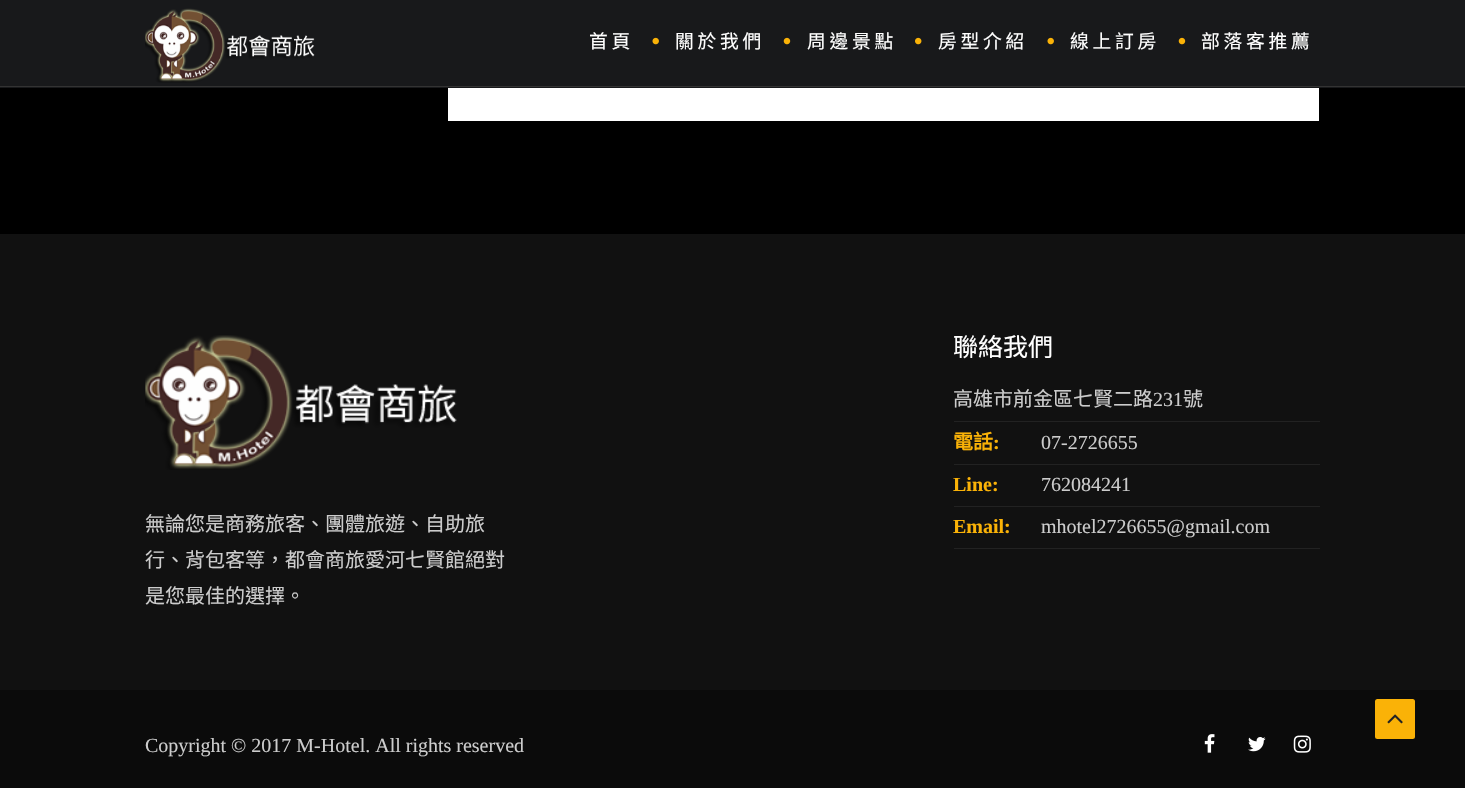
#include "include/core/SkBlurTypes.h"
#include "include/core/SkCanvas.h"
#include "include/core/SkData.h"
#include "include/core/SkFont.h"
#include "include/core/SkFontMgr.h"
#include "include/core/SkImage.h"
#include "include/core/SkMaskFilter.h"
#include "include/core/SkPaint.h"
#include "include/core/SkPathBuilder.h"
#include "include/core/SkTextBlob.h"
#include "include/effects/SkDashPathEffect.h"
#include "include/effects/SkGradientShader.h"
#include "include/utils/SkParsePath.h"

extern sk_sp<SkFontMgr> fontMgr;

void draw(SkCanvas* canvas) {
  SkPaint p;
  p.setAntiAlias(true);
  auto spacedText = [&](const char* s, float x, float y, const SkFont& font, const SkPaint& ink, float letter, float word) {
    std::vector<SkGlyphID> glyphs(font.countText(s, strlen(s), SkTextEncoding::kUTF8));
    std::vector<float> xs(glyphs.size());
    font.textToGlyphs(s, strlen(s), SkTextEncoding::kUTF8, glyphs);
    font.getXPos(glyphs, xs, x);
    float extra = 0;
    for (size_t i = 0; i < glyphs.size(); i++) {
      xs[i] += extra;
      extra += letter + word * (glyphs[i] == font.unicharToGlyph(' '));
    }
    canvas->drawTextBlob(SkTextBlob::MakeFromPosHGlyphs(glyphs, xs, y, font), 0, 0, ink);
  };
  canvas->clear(SK_ColorBLACK);
  p.setColor(SkColorSetRGB(24, 25, 27));
  canvas->drawRect(SkRect::MakeLTRB(0, 0, 1465, 88), p);
  p.setColor(SkColorSetRGB(51, 51, 51));
  canvas->drawRect(SkRect::MakeLTRB(0, 86, 1465, 87), p);
  canvas->drawImageRect(SkImages::DeferredFromEncodedData(SkData::MakeFromFileName("images/1.png")), SkRect::MakeLTRB(145, 8, 315, 83), SkSamplingOptions());
  canvas->drawImageRect(SkImages::DeferredFromEncodedData(SkData::MakeFromFileName("images/2.png")), SkRect::MakeLTRB(652, 37, 659, 45), SkSamplingOptions());
  canvas->drawImageRect(SkImages::DeferredFromEncodedData(SkData::MakeFromFileName("images/3.png")), SkRect::MakeLTRB(783, 37, 791, 45), SkSamplingOptions());
  canvas->drawImageRect(SkImages::DeferredFromEncodedData(SkData::MakeFromFileName("images/4.png")), SkRect::MakeLTRB(915, 37, 922, 45), SkSamplingOptions());
  canvas->drawImageRect(SkImages::DeferredFromEncodedData(SkData::MakeFromFileName("images/2.png")), SkRect::MakeLTRB(1047, 37, 1054, 45), SkSamplingOptions());
  canvas->drawImageRect(SkImages::DeferredFromEncodedData(SkData::MakeFromFileName("images/3.png")), SkRect::MakeLTRB(1178, 37, 1186, 45), SkSamplingOptions());
  p.setColor(SK_ColorWHITE);
  canvas->drawRect(SkRect::MakeLTRB(448, 88, 1319, 121), p);
  p.setColor(SkColorSetRGB(17, 17, 17));
  canvas->drawRect(SkRect::MakeLTRB(0, 234, 1465, 690), p);
  p.setColor(SkColorSetRGB(34, 34, 34));
  canvas->drawRect(SkRect::MakeLTRB(954, 421, 1320, 422), p);
  canvas->drawRect(SkRect::MakeLTRB(954, 464, 1320, 465), p);
  canvas->drawRect(SkRect::MakeLTRB(954, 506, 1320, 507), p);
  canvas->drawRect(SkRect::MakeLTRB(954, 548, 1320, 549), p);
  canvas->drawImageRect(SkImages::DeferredFromEncodedData(SkData::MakeFromFileName("images/5.png")), SkRect::MakeLTRB(145, 335, 457, 470), SkSamplingOptions());
  p.setColor(SkColorSetRGB(11, 11, 11));
  canvas->drawRect(SkRect::MakeLTRB(0, 690, 1465, 788), p);
  p.setColor(SkColorSetRGB(250, 178, 7));
  canvas->drawRoundRect(SkRect::MakeLTRB(1375, 699, 1415, 739), 2.5f, 2.5f, p);
  canvas->drawImageRect(SkImages::DeferredFromEncodedData(SkData::MakeFromFileName("images/6.png")), SkRect::MakeLTRB(1387, 714, 1403, 724), SkSamplingOptions());
  canvas->drawImageRect(SkImages::DeferredFromEncodedData(SkData::MakeFromFileName("images/7.png")), SkRect::MakeLTRB(1204, 734, 1215, 753), SkSamplingOptions());
  canvas->drawImageRect(SkImages::DeferredFromEncodedData(SkData::MakeFromFileName("images/8.png")), SkRect::MakeLTRB(1248, 737, 1266, 752), SkSamplingOptions());
  canvas->drawImageRect(SkImages::DeferredFromEncodedData(SkData::MakeFromFileName("images/9.png")), SkRect::MakeLTRB(1293, 735, 1311, 753), SkSamplingOptions());
  SkFont font1(fontMgr->matchFamilyStyle("Noto Sans CJK TC", SkFontStyle::Normal()), 18.75f);
  font1.setSubpixel(true);
  p.setColor(SK_ColorWHITE);
  spacedText("首頁", 589, 48, font1, p, 3.75f, 0);
  spacedText("關於我們", 675, 48, font1, p, 3.75f, 0);
  spacedText("周邊景點", 807, 48, font1, p, 3.75f, 0);
  spacedText("房型介紹", 938, 48, font1, p, 3.75f, 0);
  spacedText("線上訂房", 1070, 48, font1, p, 3.75f, 0);
  spacedText("部落客推薦", 1201, 48, font1, p, 3.75f, 0);
  SkFont font2(fontMgr->matchFamilyStyle("Noto Sans CJK TC", SkFontStyle::Normal()), 25);
  font2.setSubpixel(true);
  canvas->drawString("聯絡我們", 953, 356, font2, p);
  SkFont font3(fontMgr->matchFamilyStyle("Noto Sans CJK TC", SkFontStyle::Normal()), 20);
  font3.setSubpixel(true);
  p.setColor(SkColorSetRGB(204, 204, 204));
  canvas->drawString("高雄市前金區七賢二路", 953, 406, font3, p);
  SkFont font4(fontMgr->matchFamilyStyle("Liberation Serif", SkFontStyle::Normal()), 20);
  font4.setSubpixel(true);
  canvas->drawString("231", 1153, 406, font4, p);
  canvas->drawString("號", 1183, 406, font3, p);
  SkFont font5(fontMgr->matchFamilyStyle("Noto Sans CJK TC", SkFontStyle::Bold()), 20);
  font5.setSubpixel(true);
  p.setColor(SkColorSetRGB(250, 178, 7));
  canvas->drawString("電話", 953, 449, font5, p);
  SkFont font6(fontMgr->matchFamilyStyle("Liberation Serif", SkFontStyle::Bold()), 20);
  font6.setSubpixel(true);
  canvas->drawString(":", 993, 449, font6, p);
  p.setColor(SkColorSetRGB(204, 204, 204));
  canvas->drawString("07-2726655", 1041, 449, font4, p);
  p.setColor(SkColorSetRGB(250, 178, 7));
  canvas->drawString("Line:", 953, 491, font6, p);
  p.setColor(SkColorSetRGB(204, 204, 204));
  canvas->drawString("762084241", 1041, 491, font4, p);
  p.setColor(SkColorSetRGB(250, 178, 7));
  canvas->drawString("Email:", 953, 533, font6, p);
  p.setColor(SkColorSetRGB(204, 204, 204));
  canvas->drawString("mhotel2726655@gmail.com", 1041, 533, font4, p);
  canvas->drawString("無論您是商務旅客、團體旅遊、自助旅", 145, 531, font3, p);
  canvas->drawString("行、背包客等，都會商旅愛河七賢館絕對", 145, 567, font3, p);
  canvas->drawString("是您最佳的選擇。", 145, 603, font3, p);
  canvas->drawString("Copyright © 2017 M-Hotel. All rights reserved", 145, 752, font4, p);
}
